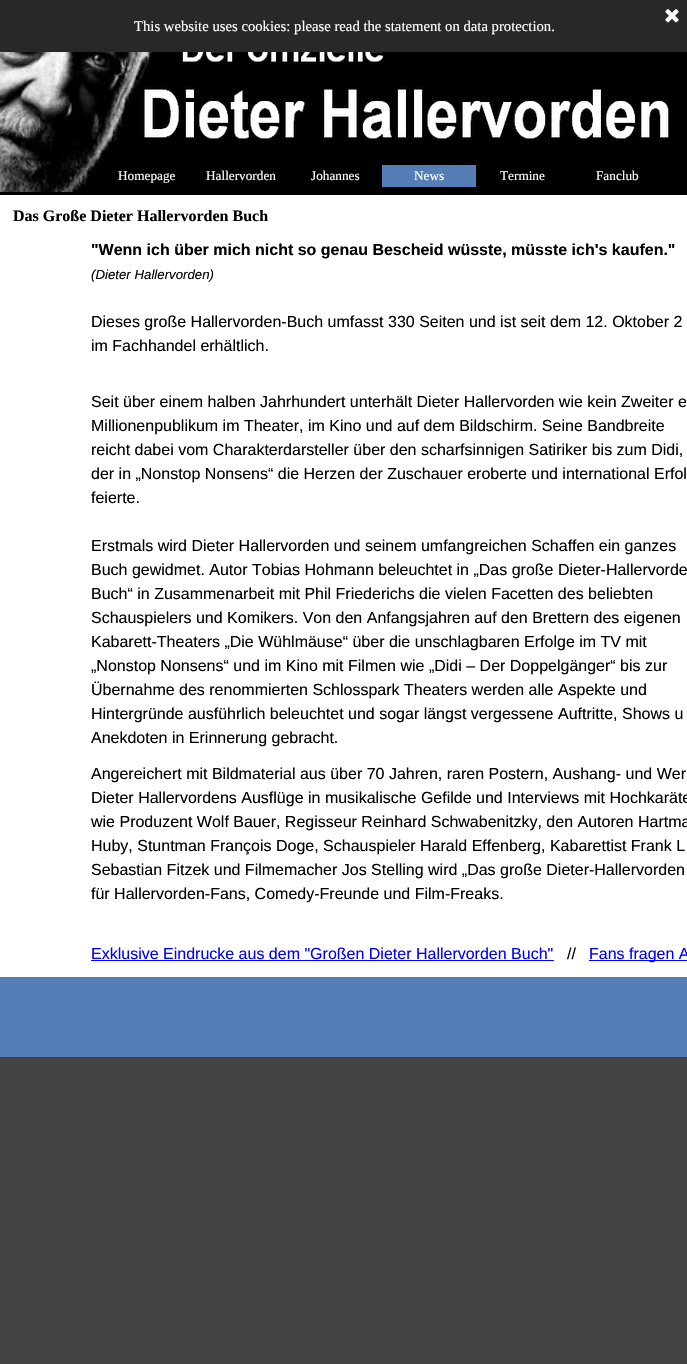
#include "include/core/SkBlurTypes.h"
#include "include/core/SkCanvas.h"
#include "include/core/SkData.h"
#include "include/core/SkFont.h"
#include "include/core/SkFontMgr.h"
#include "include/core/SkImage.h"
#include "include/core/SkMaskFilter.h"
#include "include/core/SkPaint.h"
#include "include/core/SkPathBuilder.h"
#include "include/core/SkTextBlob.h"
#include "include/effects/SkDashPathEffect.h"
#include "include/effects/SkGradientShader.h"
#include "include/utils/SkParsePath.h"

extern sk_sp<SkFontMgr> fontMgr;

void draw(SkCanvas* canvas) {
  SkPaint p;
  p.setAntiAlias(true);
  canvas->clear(SkColorSetRGB(67, 67, 67));
  p.setColor(SkColorSetRGB(40, 40, 40));
  canvas->drawRect(SkRect::MakeLTRB(0, 0, 687, 52), p);
  canvas->drawImageRect(SkImages::DeferredFromEncodedData(SkData::MakeFromFileName("images/1.png")), SkRect::MakeLTRB(665, 9, 679, 23), SkSamplingOptions());
  p.setColor(SK_ColorBLACK);
  canvas->drawRect(SkRect::MakeLTRB(0, 52, 687, 195), p);
  canvas->drawImageRect(SkImages::DeferredFromEncodedData(SkData::MakeFromFileName("images/2.png")), SkRect::MakeLTRB(0, 52, 165, 192), SkSamplingOptions());
  canvas->drawImageRect(SkImages::DeferredFromEncodedData(SkData::MakeFromFileName("images/3.png")), SkRect::MakeLTRB(182, 52, 384, 64), SkSamplingOptions());
  canvas->drawImageRect(SkImages::DeferredFromEncodedData(SkData::MakeFromFileName("images/4.png")), SkRect::MakeLTRB(142, 87, 669, 141), SkSamplingOptions());
  p.setColor(SkColorSetRGB(86, 126, 182));
  canvas->drawRect(SkRect::MakeLTRB(382, 165, 476, 187), p);
  p.setColor(SK_ColorWHITE);
  canvas->drawRect(SkRect::MakeLTRB(0, 195, 687, 977), p);
  p.setColor(SkColorSetRGB(0, 0, 255));
  canvas->drawRect(SkRect::MakeLTRB(91, 960, 554, 961), p);
  canvas->drawRect(SkRect::MakeLTRB(589, 960, 687, 961), p);
  p.setColor(SkColorSetRGB(86, 126, 182));
  canvas->drawRect(SkRect::MakeLTRB(0, 977, 687, 1057), p);
  SkFont font1(fontMgr->matchFamilyStyle("Liberation Serif", SkFontStyle::Normal()), 14.7f);
  font1.setSubpixel(true);
  p.setColor(SK_ColorWHITE);
  canvas->drawString("This website uses cookies: please read the statement on data protection.", 134, 31, font1, p);
  SkFont font2(fontMgr->matchFamilyStyle("Liberation Serif", SkFontStyle::Normal()), 13.25f);
  font2.setSubpixel(true);
  canvas->drawString("Homepage", 118, 180, font2, p);
  canvas->drawString("Hallervorden", 206, 180, font2, p);
  canvas->drawString("Johannes", 311, 180, font2, p);
  canvas->drawString("News", 414, 180, font2, p);
  canvas->drawString("Termine", 500, 180, font2, p);
  canvas->drawString("Fanclub", 596, 180, font2, p);
  SkFont font3(fontMgr->matchFamilyStyle("Liberation Serif", SkFontStyle::Bold()), 16);
  font3.setSubpixel(true);
  p.setColor(SK_ColorBLACK);
  canvas->drawString("Das Große Dieter Hallervorden Buch", 13, 221, font3, p);
  SkFont font4(fontMgr->matchFamilyStyle("Liberation Sans", SkFontStyle::Bold()), 16);
  font4.setSubpixel(true);
  canvas->drawString("\"Wenn ich über mich nicht so genau Bescheid wüsste, müsste ich's kaufen.\"", 91, 255, font4, p);
  SkFont font5(fontMgr->matchFamilyStyle("Liberation Sans", SkFontStyle::Italic()), 13.25f);
  font5.setSubpixel(true);
  canvas->drawString("(Dieter Hallervorden)", 91, 279, font5, p);
  SkFont font6(fontMgr->matchFamilyStyle("Liberation Sans", SkFontStyle::Normal()), 16);
  font6.setSubpixel(true);
  canvas->drawString("Dieses große Hallervorden-Buch umfasst 330 Seiten und ist seit dem 12. Oktober 2", 91, 327, font6, p);
  canvas->drawString("im Fachhandel erhältlich.", 91, 351, font6, p);
  canvas->drawString("Seit über einem halben Jahrhundert unterhält Dieter Hallervorden wie kein Zweiter e", 91, 407, font6, p);
  canvas->drawString("Millionenpublikum im Theater, im Kino und auf dem Bildschirm. Seine Bandbreite", 91, 431, font6, p);
  canvas->drawString("reicht dabei vom Charakterdarsteller über den scharfsinnigen Satiriker bis zum Didi,", 91, 455, font6, p);
  canvas->drawString("der in „Nonstop Nonsens“ die Herzen der Zuschauer eroberte und international Erfol", 91, 479, font6, p);
  canvas->drawString("feierte.", 91, 503, font6, p);
  canvas->drawString("Erstmals wird Dieter Hallervorden und seinem umfangreichen Schaffen ein ganzes", 91, 551, font6, p);
  canvas->drawString("Buch gewidmet. Autor Tobias Hohmann beleuchtet in „Das große Dieter-Hallervorde", 91, 575, font6, p);
  canvas->drawString("Buch“ in Zusammenarbeit mit Phil Friederichs die vielen Facetten des beliebten", 91, 599, font6, p);
  canvas->drawString("Schauspielers und Komikers. Von den Anfangsjahren auf den Brettern des eigenen", 91, 623, font6, p);
  canvas->drawString("Kabarett-Theaters „Die Wühlmäuse“ über die unschlagbaren Erfolge im TV mit", 91, 647, font6, p);
  canvas->drawString("„Nonstop Nonsens“ und im Kino mit Filmen wie „Didi – Der Doppelgänger“ bis zur", 91, 671, font6, p);
  canvas->drawString("Übernahme des renommierten Schlosspark Theaters werden alle Aspekte und", 91, 695, font6, p);
  canvas->drawString("Hintergründe ausführlich beleuchtet und sogar längst vergessene Auftritte, Shows u", 91, 719, font6, p);
  canvas->drawString("Anekdoten in Erinnerung gebracht.", 91, 743, font6, p);
  canvas->drawString("Angereichert mit Bildmaterial aus über 70 Jahren, raren Postern, Aushang- und Wer", 91, 779, font6, p);
  canvas->drawString("Dieter Hallervordens Ausflüge in musikalische Gefilde und Interviews mit Hochkaräte", 91, 803, font6, p);
  canvas->drawString("wie Produzent Wolf Bauer, Regisseur Reinhard Schwabenitzky, den Autoren Hartma", 91, 827, font6, p);
  canvas->drawString("Huby, Stuntman François Doge, Schauspieler Harald Effenberg, Kabarettist Frank L", 91, 851, font6, p);
  canvas->drawString("Sebastian Fitzek und Filmemacher Jos Stelling wird „Das große Dieter-Hallervorden", 91, 875, font6, p);
  canvas->drawString("für Hallervorden-Fans, Comedy-Freunde und Film-Freaks.", 91, 899, font6, p);
  p.setColor(SkColorSetRGB(0, 0, 255));
  canvas->drawString("Exklusive Eindrucke aus dem \"Großen Dieter Hallervorden Buch\"", 91, 959, font6, p);
  p.setColor(SK_ColorBLACK);
  canvas->drawString("//", 567, 959, font6, p);
  p.setColor(SkColorSetRGB(0, 0, 255));
  canvas->drawString("Fans fragen A", 589, 959, font6, p);
}
